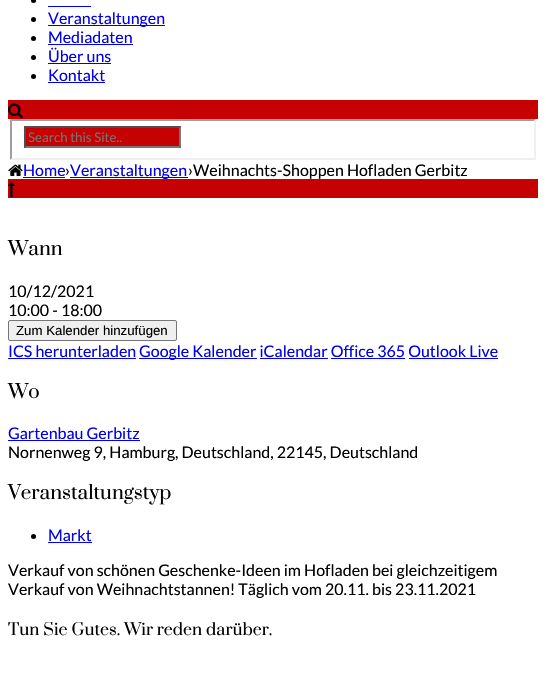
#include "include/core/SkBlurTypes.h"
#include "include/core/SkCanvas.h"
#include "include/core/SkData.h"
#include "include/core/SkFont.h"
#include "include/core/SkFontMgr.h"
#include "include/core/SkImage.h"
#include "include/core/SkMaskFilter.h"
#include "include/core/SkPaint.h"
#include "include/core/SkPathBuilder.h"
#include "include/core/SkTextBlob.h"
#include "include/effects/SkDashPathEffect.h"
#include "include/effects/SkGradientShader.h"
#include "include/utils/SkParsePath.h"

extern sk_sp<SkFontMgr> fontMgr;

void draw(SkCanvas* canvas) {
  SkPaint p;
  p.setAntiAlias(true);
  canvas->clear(SK_ColorWHITE);
  p.setColor(SK_ColorBLACK);
  canvas->drawCircle(33.5f, 0.5f, 2.5f, p);
  p.setColor(SkColorSetRGB(0, 0, 238));
  canvas->drawRect(SkRect::MakeLTRB(48, 6, 91, 7), p);
  p.setColor(SK_ColorBLACK);
  canvas->drawCircle(33.5f, 19.5f, 2.5f, p);
  p.setColor(SkColorSetRGB(0, 0, 238));
  canvas->drawRect(SkRect::MakeLTRB(48, 25, 165, 26), p);
  p.setColor(SK_ColorBLACK);
  canvas->drawCircle(33.5f, 38.5f, 2.5f, p);
  p.setColor(SkColorSetRGB(0, 0, 238));
  canvas->drawRect(SkRect::MakeLTRB(48, 44, 133, 45), p);
  p.setColor(SK_ColorBLACK);
  canvas->drawCircle(33.5f, 57.5f, 2.5f, p);
  p.setColor(SkColorSetRGB(0, 0, 238));
  canvas->drawRect(SkRect::MakeLTRB(48, 63, 111, 64), p);
  p.setColor(SK_ColorBLACK);
  canvas->drawCircle(33.5f, 76.5f, 2.5f, p);
  p.setColor(SkColorSetRGB(0, 0, 238));
  canvas->drawRect(SkRect::MakeLTRB(48, 82, 105, 83), p);
  p.setColor(SkColorSetRGB(197, 1, 1));
  canvas->drawRect(SkRect::MakeLTRB(8, 100, 538, 119), p);
  canvas->drawImageRect(SkImages::DeferredFromEncodedData(SkData::MakeFromFileName("images/1.png")), SkRect::MakeLTRB(8, 103, 23, 119), SkSamplingOptions());
  p.setColor(SkColorSetRGB(159, 159, 159));
  canvas->drawPath(SkPathBuilder().moveTo(10, 119).lineTo(536, 119).lineTo(534, 121).lineTo(12, 121).close().detach(), p);
  p.setColor(SkColorSetRGB(239, 239, 239));
  canvas->drawPath(SkPathBuilder().moveTo(536, 119).lineTo(536, 160).lineTo(534, 158).lineTo(534, 121).close().detach(), p);
  canvas->drawPath(SkPathBuilder().moveTo(536, 160).lineTo(10, 160).lineTo(12, 158).lineTo(534, 158).close().detach(), p);
  p.setColor(SkColorSetRGB(159, 159, 159));
  canvas->drawPath(SkPathBuilder().moveTo(10, 160).lineTo(10, 119).lineTo(12, 121).lineTo(12, 158).close().detach(), p);
  p.setColor(SkColorSetRGB(197, 1, 1));
  canvas->drawRect(SkRect::MakeLTRB(24, 126, 181, 148), p);
  p.setColor(SkColorSetRGB(79, 79, 79));
  canvas->drawPath(SkPathBuilder().moveTo(24, 126).lineTo(181, 126).lineTo(179, 128).lineTo(26, 128).close().detach(), p);
  p.setColor(SkColorSetRGB(118, 118, 118));
  canvas->drawPath(SkPathBuilder().moveTo(181, 126).lineTo(181, 148).lineTo(179, 146).lineTo(179, 128).close().detach(), p);
  canvas->drawPath(SkPathBuilder().moveTo(181, 148).lineTo(24, 148).lineTo(26, 146).lineTo(179, 146).close().detach(), p);
  p.setColor(SkColorSetRGB(79, 79, 79));
  canvas->drawPath(SkPathBuilder().moveTo(24, 148).lineTo(24, 126).lineTo(26, 128).lineTo(26, 146).close().detach(), p);
  canvas->drawImageRect(SkImages::DeferredFromEncodedData(SkData::MakeFromFileName("images/2.png")), SkRect::MakeLTRB(8, 164, 23, 176), SkSamplingOptions());
  p.setColor(SkColorSetRGB(0, 0, 238));
  canvas->drawRect(SkRect::MakeLTRB(23, 177, 65, 178), p);
  canvas->drawRect(SkRect::MakeLTRB(70, 177, 188, 178), p);
  p.setColor(SkColorSetRGB(197, 1, 1));
  canvas->drawRect(SkRect::MakeLTRB(8, 179, 538, 198), p);
  canvas->drawImageRect(SkImages::DeferredFromEncodedData(SkData::MakeFromFileName("images/3.png")), SkRect::MakeLTRB(8, 181, 15, 198), SkSamplingOptions());
  p.setColor(SkColorSetRGB(239, 239, 239));
  canvas->drawRoundRect(SkRect::MakeLTRB(8.5f, 320.5f, 176.5f, 340.5f), 1.5f, 1.5f, p);
  p.setStyle(SkPaint::kStroke_Style);
  p.setStrokeWidth(1);
  p.setColor(SkColorSetRGB(118, 118, 118));
  canvas->drawRoundRect(SkRect::MakeLTRB(8.5f, 320.5f, 176.5f, 340.5f), 1.5f, 1.5f, p);
  p.setStyle(SkPaint::kFill_Style);
  p.setColor(SkColorSetRGB(0, 0, 238));
  canvas->drawRect(SkRect::MakeLTRB(8, 358, 136, 359), p);
  canvas->drawRect(SkRect::MakeLTRB(139, 358, 257, 359), p);
  canvas->drawRect(SkRect::MakeLTRB(260, 358, 328, 359), p);
  canvas->drawRect(SkRect::MakeLTRB(331, 358, 405, 359), p);
  canvas->drawRect(SkRect::MakeLTRB(409, 358, 498, 359), p);
  canvas->drawRect(SkRect::MakeLTRB(8, 440, 140, 441), p);
  p.setColor(SK_ColorBLACK);
  canvas->drawCircle(33.5f, 536.5f, 2.5f, p);
  p.setColor(SkColorSetRGB(0, 0, 238));
  canvas->drawRect(SkRect::MakeLTRB(48, 542, 92, 543), p);
  SkFont font1(fontMgr->matchFamilyStyle("Lato", SkFontStyle::Normal()), 16);
  font1.setSubpixel(true);
  canvas->drawString("Veranstaltungen", 48, 24, font1, p);
  canvas->drawString("Mediadaten", 48, 43, font1, p);
  canvas->drawString("Über uns", 48, 62, font1, p);
  canvas->drawString("Kontakt", 48, 81, font1, p);
  SkFont font2(fontMgr->matchFamilyStyle("Lato", SkFontStyle::Normal()), 13.25f);
  font2.setSubpixel(true);
  p.setColor(SkColorSetRGB(117, 117, 117));
  canvas->drawString("Search this Site..", 28, 142, font2, p);
  p.setColor(SkColorSetRGB(0, 0, 238));
  canvas->drawString("Home", 23, 176, font1, p);
  p.setColor(SK_ColorBLACK);
  canvas->drawString("›", 65, 176, font1, p);
  p.setColor(SkColorSetRGB(0, 0, 238));
  canvas->drawString("Veranstaltungen", 70, 176, font1, p);
  p.setColor(SK_ColorBLACK);
  canvas->drawString("›Weihnachts-Shoppen Hofladen Gerbitz", 188, 176, font1, p);
  SkFont font3(fontMgr->matchFamilyStyle("Prata", SkFontStyle::Normal()), 18.75f);
  font3.setSubpixel(true);
  canvas->drawString("Wann", 8, 255, font3, p);
  canvas->drawString("10/12/2021", 8, 297, font1, p);
  canvas->drawString("10:00 - 18:00", 8, 316, font1, p);
  SkFont font4(fontMgr->matchFamilyStyle("Liberation Sans", SkFontStyle::Normal()), 13.25f);
  font4.setSubpixel(true);
  canvas->drawString("Zum Kalender hinzufügen", 16, 335, font4, p);
  p.setColor(SkColorSetRGB(0, 0, 238));
  canvas->drawString("ICS herunterladen", 8, 357, font1, p);
  canvas->drawString("Google Kalender iCalendar Office 365 Outlook Live", 139, 357, font1, p);
  p.setColor(SK_ColorBLACK);
  canvas->drawString("Wo", 8, 398, font3, p);
  p.setColor(SkColorSetRGB(0, 0, 238));
  canvas->drawString("Gartenbau Gerbitz", 8, 439, font1, p);
  p.setColor(SK_ColorBLACK);
  canvas->drawString("Nornenweg 9, Hamburg, Deutschland, 22145, Deutschland", 8, 458, font1, p);
  canvas->drawString("Veranstaltungstyp", 8, 499, font3, p);
  p.setColor(SkColorSetRGB(0, 0, 238));
  canvas->drawString("Markt", 48, 541, font1, p);
  p.setColor(SK_ColorBLACK);
  canvas->drawString("Verkauf von schönen Geschenke-Ideen im Hofladen bei gleichzeitigem", 8, 576, font1, p);
  canvas->drawString("Verkauf von Weihnachtstannen! Täglich vom 20.11. bis 23.11.2021", 8, 595, font1, p);
  SkFont font5(fontMgr->matchFamilyStyle("Prata", SkFontStyle::Normal()), 16);
  font5.setSubpixel(true);
  canvas->drawString("Tun Sie Gutes. Wir reden darüber.", 8, 635, font5, p);
}
